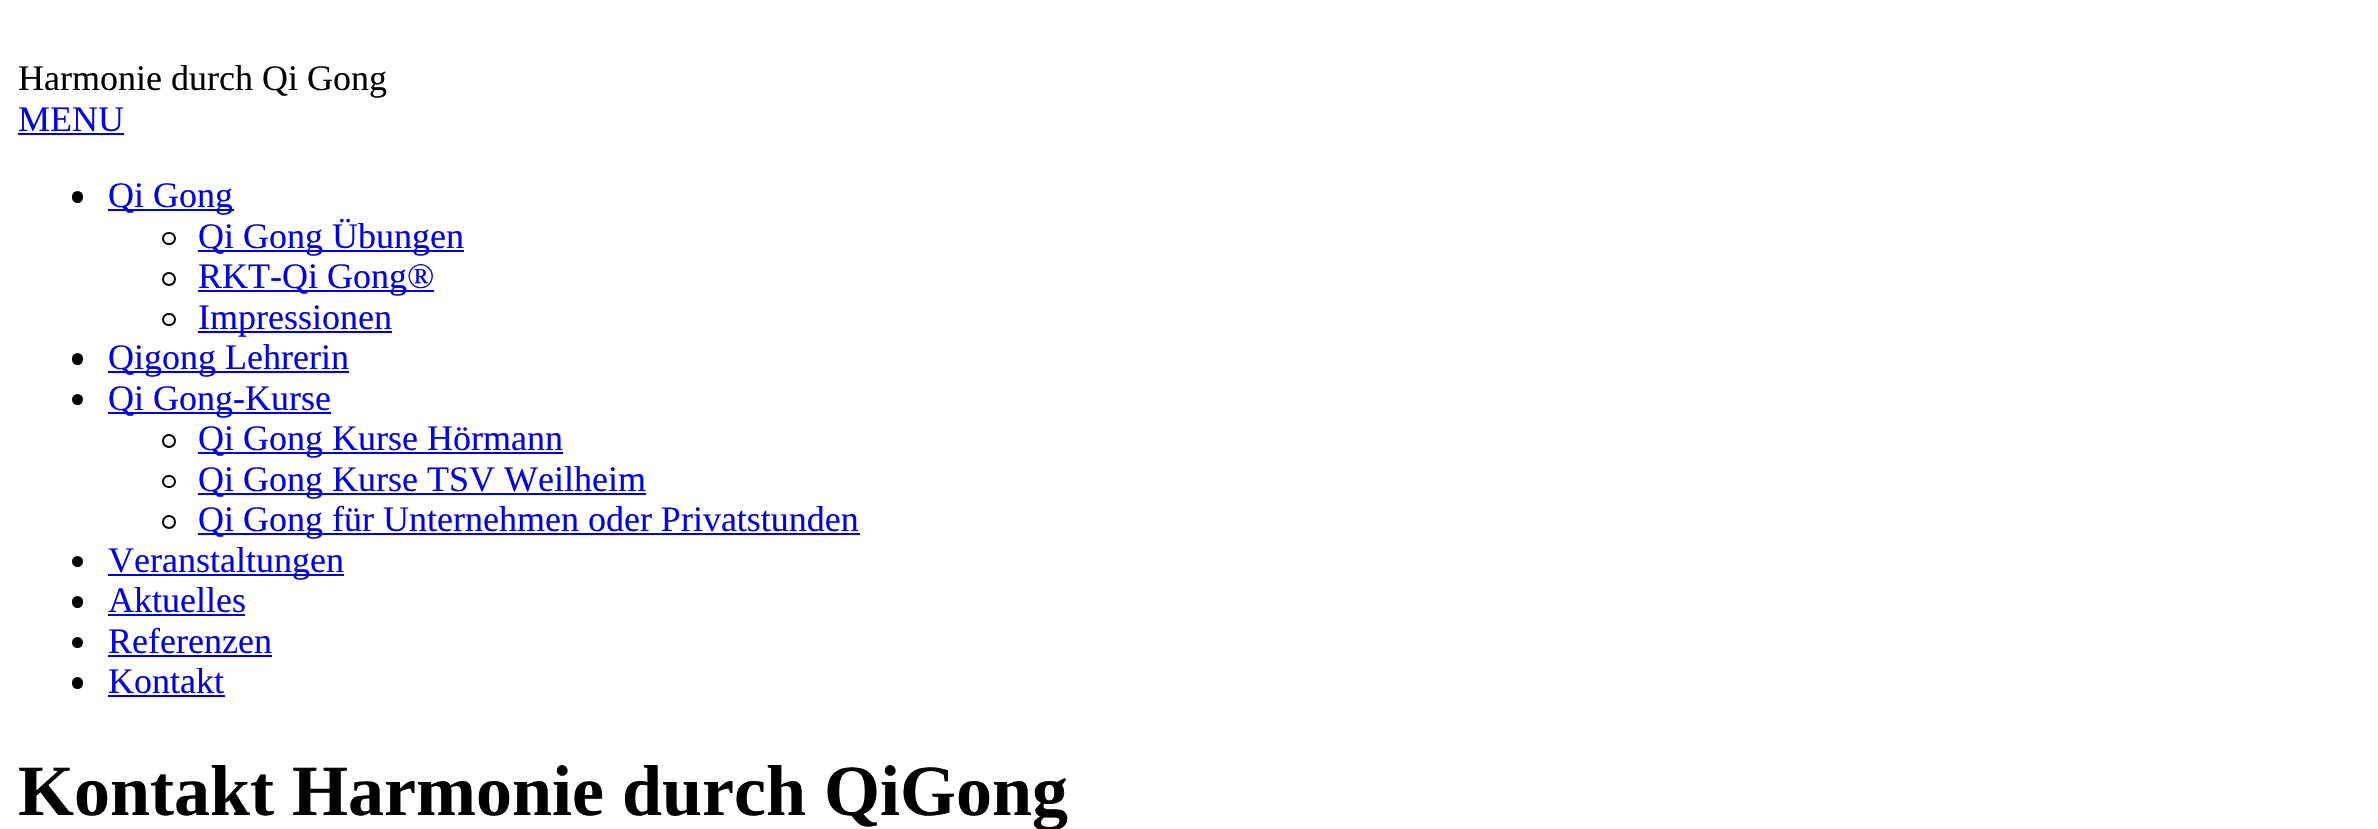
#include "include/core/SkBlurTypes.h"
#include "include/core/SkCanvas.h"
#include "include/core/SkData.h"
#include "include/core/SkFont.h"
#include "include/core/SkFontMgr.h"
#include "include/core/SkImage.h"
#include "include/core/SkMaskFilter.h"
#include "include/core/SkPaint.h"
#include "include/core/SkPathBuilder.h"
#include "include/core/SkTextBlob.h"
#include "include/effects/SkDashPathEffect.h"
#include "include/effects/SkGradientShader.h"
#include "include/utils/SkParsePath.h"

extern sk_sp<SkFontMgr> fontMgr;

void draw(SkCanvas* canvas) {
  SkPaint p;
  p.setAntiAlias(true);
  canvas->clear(SK_ColorWHITE);
  p.setColor(SkColorSetRGB(0, 0, 238));
  canvas->drawRect(SkRect::MakeLTRB(18, 133, 124, 135), p);
  p.setColor(SK_ColorBLACK);
  canvas->drawRoundRect(SkRect::MakeLTRB(72, 191, 83, 203), 5.5f, 5.5f, p);
  p.setColor(SkColorSetRGB(0, 0, 238));
  canvas->drawRect(SkRect::MakeLTRB(108, 209, 234, 211), p);
  p.setStyle(SkPaint::kStroke_Style);
  p.setStrokeWidth(2);
  p.setColor(SK_ColorBLACK);
  canvas->drawRoundRect(SkRect::MakeLTRB(163, 233, 175, 244), 5.5f, 5.5f, p);
  p.setStyle(SkPaint::kFill_Style);
  p.setColor(SkColorSetRGB(0, 0, 238));
  canvas->drawRect(SkRect::MakeLTRB(198, 250, 464, 252), p);
  p.setStyle(SkPaint::kStroke_Style);
  p.setColor(SK_ColorBLACK);
  canvas->drawCircle(169, 279, 6, p);
  p.setStyle(SkPaint::kFill_Style);
  p.setColor(SkColorSetRGB(0, 0, 238));
  canvas->drawRect(SkRect::MakeLTRB(198, 290, 434, 292), p);
  p.setStyle(SkPaint::kStroke_Style);
  p.setColor(SK_ColorBLACK);
  canvas->drawRoundRect(SkRect::MakeLTRB(163, 314, 175, 325), 5.5f, 5.5f, p);
  p.setStyle(SkPaint::kFill_Style);
  p.setColor(SkColorSetRGB(0, 0, 238));
  canvas->drawRect(SkRect::MakeLTRB(198, 331, 392, 333), p);
  p.setColor(SK_ColorBLACK);
  canvas->drawRoundRect(SkRect::MakeLTRB(72, 353, 83, 365), 5.5f, 5.5f, p);
  p.setColor(SkColorSetRGB(0, 0, 238));
  canvas->drawRect(SkRect::MakeLTRB(108, 371, 349, 373), p);
  p.setColor(SK_ColorBLACK);
  canvas->drawCircle(77.5f, 399.5f, 5.5f, p);
  p.setColor(SkColorSetRGB(0, 0, 238));
  canvas->drawRect(SkRect::MakeLTRB(108, 412, 331, 414), p);
  p.setStyle(SkPaint::kStroke_Style);
  p.setColor(SK_ColorBLACK);
  canvas->drawCircle(169, 441, 6, p);
  p.setStyle(SkPaint::kFill_Style);
  p.setColor(SkColorSetRGB(0, 0, 238));
  canvas->drawRect(SkRect::MakeLTRB(198, 452, 563, 454), p);
  p.setStyle(SkPaint::kStroke_Style);
  p.setColor(SK_ColorBLACK);
  canvas->drawRoundRect(SkRect::MakeLTRB(163, 476, 175, 487), 5.5f, 5.5f, p);
  p.setStyle(SkPaint::kFill_Style);
  p.setColor(SkColorSetRGB(0, 0, 238));
  canvas->drawRect(SkRect::MakeLTRB(198, 493, 646, 495), p);
  p.setStyle(SkPaint::kStroke_Style);
  p.setColor(SK_ColorBLACK);
  canvas->drawCircle(169, 522, 6, p);
  p.setStyle(SkPaint::kFill_Style);
  p.setColor(SkColorSetRGB(0, 0, 238));
  canvas->drawRect(SkRect::MakeLTRB(198, 533, 860, 535), p);
  p.setColor(SK_ColorBLACK);
  canvas->drawCircle(77.5f, 561.5f, 5.5f, p);
  p.setColor(SkColorSetRGB(0, 0, 238));
  canvas->drawRect(SkRect::MakeLTRB(108, 574, 344, 576), p);
  p.setColor(SK_ColorBLACK);
  canvas->drawRoundRect(SkRect::MakeLTRB(72, 596, 83, 608), 5.5f, 5.5f, p);
  p.setColor(SkColorSetRGB(0, 0, 238));
  canvas->drawRect(SkRect::MakeLTRB(108, 614, 245, 616), p);
  p.setColor(SK_ColorBLACK);
  canvas->drawCircle(77.5f, 642.5f, 5.5f, p);
  p.setColor(SkColorSetRGB(0, 0, 238));
  canvas->drawRect(SkRect::MakeLTRB(108, 655, 272, 657), p);
  p.setColor(SK_ColorBLACK);
  canvas->drawRoundRect(SkRect::MakeLTRB(72, 677, 83, 689), 5.5f, 5.5f, p);
  p.setColor(SkColorSetRGB(0, 0, 238));
  canvas->drawRect(SkRect::MakeLTRB(108, 695, 225, 697), p);
  SkFont font1(fontMgr->matchFamilyStyle("Liberation Serif", SkFontStyle::Normal()), 36);
  font1.setSubpixel(true);
  p.setColor(SK_ColorBLACK);
  canvas->drawString("Harmonie durch Qi Gong", 18, 90, font1, p);
  p.setColor(SkColorSetRGB(0, 0, 238));
  canvas->drawString("MENU", 18, 131, font1, p);
  canvas->drawString("Qi Gong", 108, 207, font1, p);
  canvas->drawString("Qi Gong Übungen", 198, 248, font1, p);
  canvas->drawString("RKT-Qi Gong®", 198, 288, font1, p);
  canvas->drawString("Impressionen", 198, 329, font1, p);
  canvas->drawString("Qigong Lehrerin", 108, 369, font1, p);
  canvas->drawString("Qi Gong-Kurse", 108, 410, font1, p);
  canvas->drawString("Qi Gong Kurse Hörmann", 198, 450, font1, p);
  canvas->drawString("Qi Gong Kurse TSV Weilheim", 198, 491, font1, p);
  canvas->drawString("Qi Gong für Unternehmen oder Privatstunden", 198, 531, font1, p);
  canvas->drawString("Veranstaltungen", 108, 572, font1, p);
  canvas->drawString("Aktuelles", 108, 612, font1, p);
  canvas->drawString("Referenzen", 108, 653, font1, p);
  canvas->drawString("Kontakt", 108, 693, font1, p);
  SkFont font2(fontMgr->matchFamilyStyle("Liberation Serif", SkFontStyle::Bold()), 72);
  font2.setSubpixel(true);
  p.setColor(SK_ColorBLACK);
  canvas->drawString("Kontakt Harmonie durch QiGong", 18, 815, font2, p);
}
